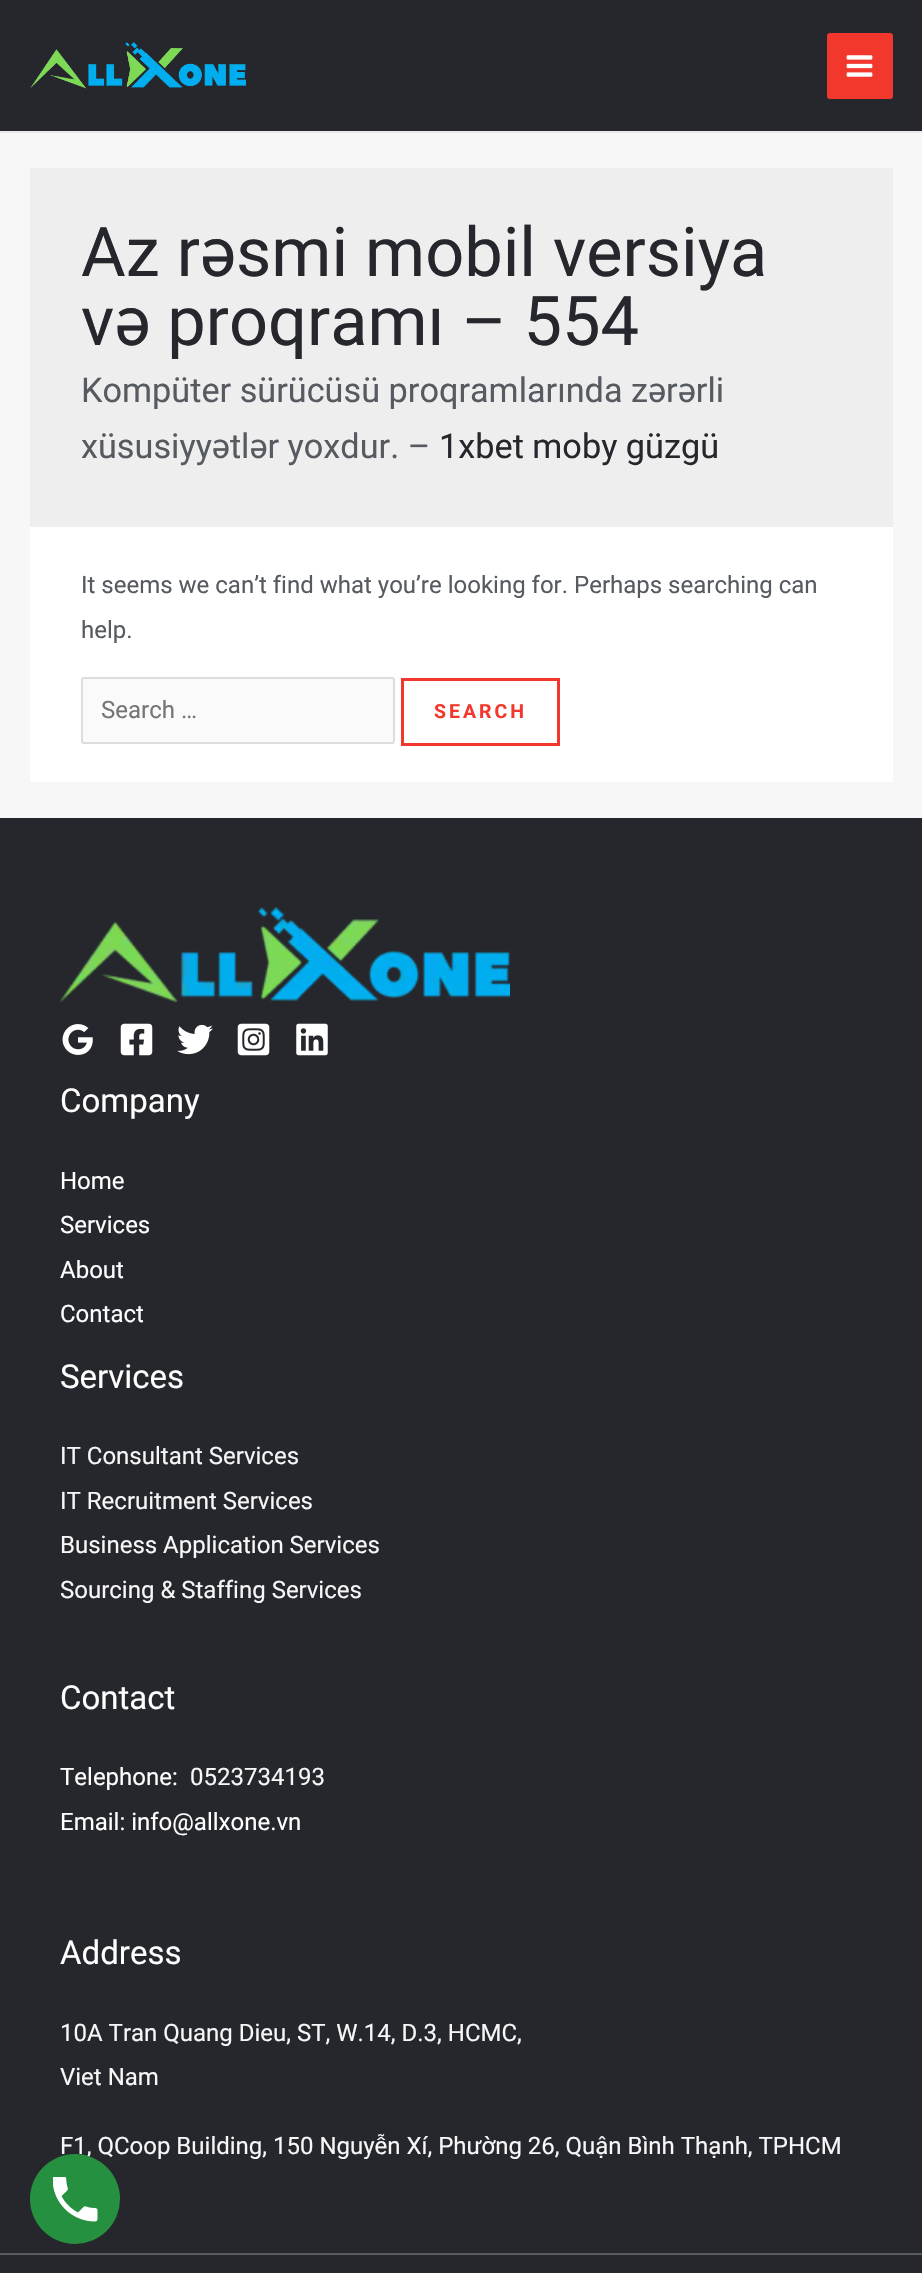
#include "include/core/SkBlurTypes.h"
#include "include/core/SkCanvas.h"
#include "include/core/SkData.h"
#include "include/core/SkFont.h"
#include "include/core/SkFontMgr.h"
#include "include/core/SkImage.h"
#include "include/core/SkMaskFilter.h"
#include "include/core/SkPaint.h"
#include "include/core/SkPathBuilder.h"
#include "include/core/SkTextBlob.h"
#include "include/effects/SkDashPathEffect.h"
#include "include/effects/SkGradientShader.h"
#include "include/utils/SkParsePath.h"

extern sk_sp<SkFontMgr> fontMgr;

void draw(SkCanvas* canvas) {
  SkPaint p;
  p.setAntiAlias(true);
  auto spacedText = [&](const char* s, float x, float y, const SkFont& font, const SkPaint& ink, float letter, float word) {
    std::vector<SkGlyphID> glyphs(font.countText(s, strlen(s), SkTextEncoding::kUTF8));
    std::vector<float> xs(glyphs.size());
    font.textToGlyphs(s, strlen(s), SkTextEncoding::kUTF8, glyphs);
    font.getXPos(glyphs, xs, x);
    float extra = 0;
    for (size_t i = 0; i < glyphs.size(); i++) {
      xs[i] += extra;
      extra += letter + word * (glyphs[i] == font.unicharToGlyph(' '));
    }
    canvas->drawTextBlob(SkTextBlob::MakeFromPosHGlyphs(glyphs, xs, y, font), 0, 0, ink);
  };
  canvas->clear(SkColorSetRGB(247, 247, 248));
  p.setColor(SkColorSetRGB(37, 39, 45));
  canvas->drawRect(SkRect::MakeLTRB(0, 0, 922, 131), p);
  p.setColor(SkColorSetRGB(234, 234, 234));
  canvas->drawRect(SkRect::MakeLTRB(0, 131, 922, 133), p);
  canvas->drawImageRect(SkImages::DeferredFromEncodedData(SkData::MakeFromFileName("images/1.png")), SkRect::MakeLTRB(30, 42, 246, 89), SkSamplingOptions());
  p.setColor(SkColorSetRGB(242, 56, 44));
  canvas->drawRoundRect(SkRect::MakeLTRB(827, 33, 893, 99), 3, 3, p);
  canvas->drawImageRect(SkImages::DeferredFromEncodedData(SkData::MakeFromFileName("images/2.png")), SkRect::MakeLTRB(846, 55, 873, 77), SkSamplingOptions());
  p.setColor(SkColorSetRGB(238, 238, 238));
  canvas->drawRect(SkRect::MakeLTRB(30, 168, 893, 527), p);
  p.setColor(SK_ColorWHITE);
  canvas->drawRect(SkRect::MakeLTRB(30, 527, 893, 782), p);
  p.setColor(SkColorSetRGB(250, 250, 250));
  canvas->drawRoundRect(SkRect::MakeLTRB(82, 678, 394, 743), 2, 2, p);
  p.setStyle(SkPaint::kStroke_Style);
  p.setStrokeWidth(2);
  p.setColor(SkColorSetRGB(221, 221, 221));
  canvas->drawRoundRect(SkRect::MakeLTRB(82, 678, 394, 743), 2, 2, p);
  p.setStrokeWidth(3);
  p.setColor(SkColorSetRGB(242, 56, 44));
  canvas->drawRect(SkRect::MakeLTRB(402.5f, 679.5f, 558.5f, 744.5f), p);
  p.setStyle(SkPaint::kFill_Style);
  p.setColor(SkColorSetRGB(37, 39, 45));
  canvas->drawRect(SkRect::MakeLTRB(0, 818, 922, 2273), p);
  canvas->drawImageRect(SkImages::DeferredFromEncodedData(SkData::MakeFromFileName("images/3.png")), SkRect::MakeLTRB(60, 907, 510, 1002), SkSamplingOptions());
  canvas->drawImageRect(SkImages::DeferredFromEncodedData(SkData::MakeFromFileName("images/4.png")), SkRect::MakeLTRB(62, 1024, 93, 1055), SkSamplingOptions());
  canvas->drawImageRect(SkImages::DeferredFromEncodedData(SkData::MakeFromFileName("images/5.png")), SkRect::MakeLTRB(120, 1023, 153, 1056), SkSamplingOptions());
  canvas->drawImageRect(SkImages::DeferredFromEncodedData(SkData::MakeFromFileName("images/6.png")), SkRect::MakeLTRB(177, 1024, 213, 1055), SkSamplingOptions());
  canvas->drawImageRect(SkImages::DeferredFromEncodedData(SkData::MakeFromFileName("images/7.png")), SkRect::MakeLTRB(237, 1023, 270, 1056), SkSamplingOptions());
  canvas->drawImageRect(SkImages::DeferredFromEncodedData(SkData::MakeFromFileName("images/8.png")), SkRect::MakeLTRB(296, 1023, 328, 1056), SkSamplingOptions());
  p.setColor(SkColorSetRGB(86, 90, 97));
  canvas->drawRect(SkRect::MakeLTRB(0, 2253, 922, 2255), p);
  SkFont font1(fontMgr->matchFamilyStyle("Roboto", SkFontStyle::Normal()), 68.5f);
  font1.setSubpixel(true);
  p.setColor(SkColorSetRGB(37, 39, 45));
  canvas->drawString("Az rəsmi mobil versiya", 81, 276, font1, p);
  canvas->drawString("və proqramı – 554", 81, 345, font1, p);
  SkFont font2(fontMgr->matchFamilyStyle("Roboto", SkFontStyle::Normal()), 34.25f);
  font2.setSubpixel(true);
  p.setColor(SkColorSetRGB(86, 90, 97));
  canvas->drawString("Kompüter sürücüsü proqramlarında zərərli", 81, 402, font2, p);
  canvas->drawString("xüsusiyyətlər yoxdur. –", 81, 458, font2, p);
  p.setColor(SkColorSetRGB(37, 39, 45));
  canvas->drawString("1xbet moby güzgü", 439, 458, font2, p);
  SkFont font3(fontMgr->matchFamilyStyle("Roboto", SkFontStyle::Normal()), 24);
  font3.setSubpixel(true);
  p.setColor(SkColorSetRGB(86, 90, 97));
  canvas->drawString("It seems we can’t find what you’re looking for. Perhaps searching can", 81, 593, font3, p);
  canvas->drawString("help.", 81, 638, font3, p);
  p.setColor(SkColorSetRGB(117, 117, 117));
  canvas->drawString("Search …", 101, 718, font3, p);
  SkFont font4(fontMgr->matchFamilyStyle("Roboto", SkFontStyle::Bold()), 19.5f);
  font4.setSubpixel(true);
  p.setColor(SkColorSetRGB(242, 56, 44));
  spacedText("SEARCH", 434, 718, font4, p, 3, 0);
  SkFont font5(fontMgr->matchFamilyStyle("Roboto", SkFontStyle::Normal()), 33);
  font5.setSubpixel(true);
  p.setColor(SK_ColorWHITE);
  canvas->drawString("Company", 60, 1112, font5, p);
  canvas->drawString("Home", 60, 1189, font3, p);
  canvas->drawString("Services", 60, 1233, font3, p);
  canvas->drawString("About", 60, 1278, font3, p);
  canvas->drawString("Contact", 60, 1322, font3, p);
  canvas->drawString("Services", 60, 1388, font5, p);
  p.setColor(SkColorSetRGB(247, 247, 248));
  canvas->drawString("IT Consultant Services", 60, 1464, font3, p);
  canvas->drawString("IT Recruitment Services", 60, 1509, font3, p);
  canvas->drawString("Business Application Services", 60, 1553, font3, p);
  canvas->drawString("Sourcing & Staffing Services", 60, 1598, font3, p);
  p.setColor(SK_ColorWHITE);
  canvas->drawString("Contact", 60, 1709, font5, p);
  canvas->drawString("Telephone:", 60, 1785, font3, p);
  p.setColor(SkColorSetRGB(247, 247, 248));
  canvas->drawString("0523734193", 190, 1785, font3, p);
  p.setColor(SK_ColorWHITE);
  canvas->drawString("Email: info@allxone.vn", 60, 1830, font3, p);
  canvas->drawString("Address", 60, 1964, font5, p);
  p.setColor(SkColorSetRGB(247, 247, 248));
  canvas->drawString("10A Tran Quang Dieu, ST, W.14, D.3, HCMC,", 60, 2041, font3, p);
  canvas->drawString("Viet Nam", 60, 2085, font3, p);
  canvas->drawString("F1, QCoop Building, 150 Nguyễn Xí, Phường 26, Quận Bình Thạnh, TPHCM", 60, 2154, font3, p);
  p.setColor(SkColorSetRGB(38, 144, 65));
  canvas->drawCircle(75, 2199, 45, p);
  canvas->drawImageRect(SkImages::DeferredFromEncodedData(SkData::MakeFromFileName("images/9.png")), SkRect::MakeLTRB(53, 2177, 98, 2222), SkSamplingOptions());
}
